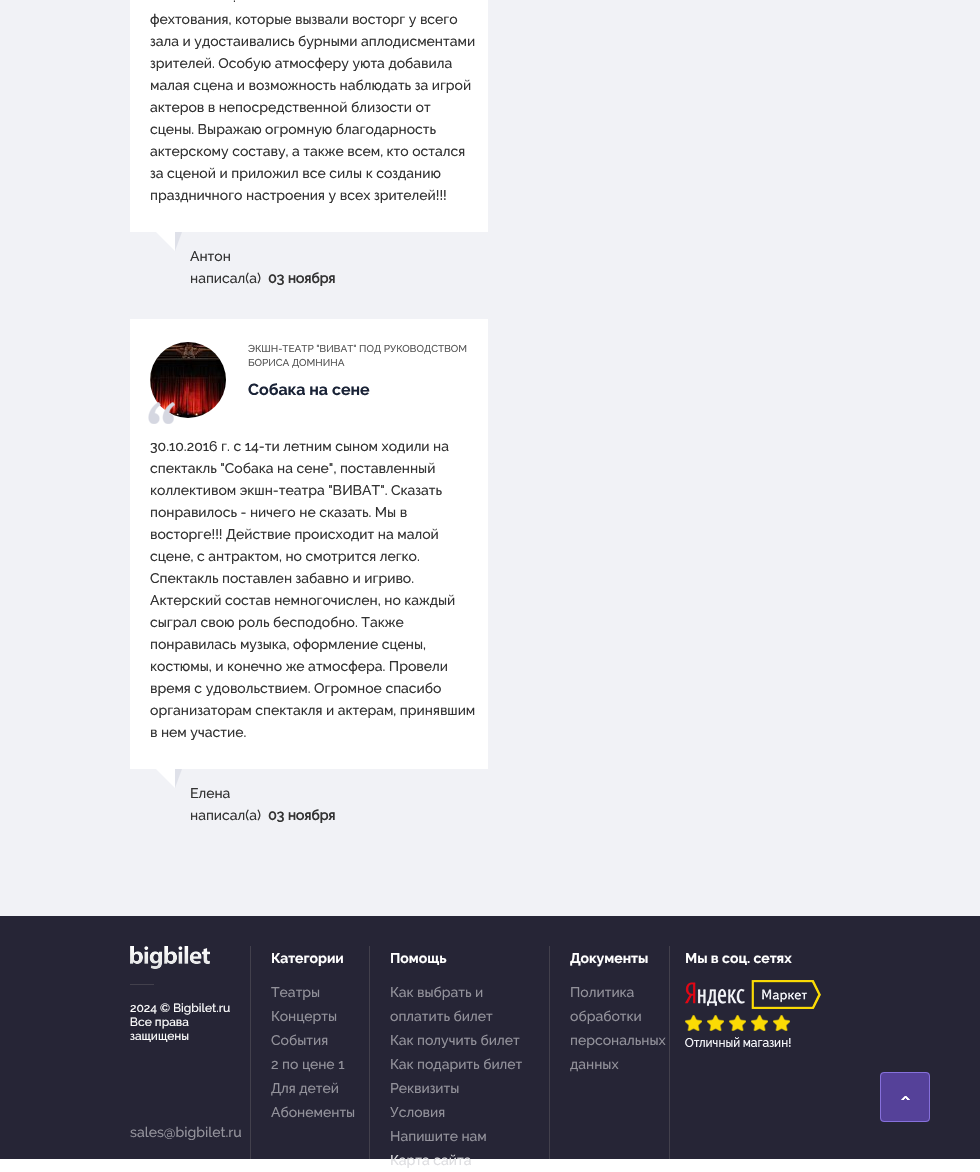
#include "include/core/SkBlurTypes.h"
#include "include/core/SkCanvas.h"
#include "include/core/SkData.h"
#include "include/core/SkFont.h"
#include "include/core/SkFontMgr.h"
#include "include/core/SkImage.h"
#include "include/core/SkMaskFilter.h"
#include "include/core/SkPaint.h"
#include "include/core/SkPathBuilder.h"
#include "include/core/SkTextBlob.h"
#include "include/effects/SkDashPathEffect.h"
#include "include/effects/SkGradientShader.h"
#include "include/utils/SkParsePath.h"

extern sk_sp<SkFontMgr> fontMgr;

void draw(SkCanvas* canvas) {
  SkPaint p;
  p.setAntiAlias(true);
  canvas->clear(SK_ColorWHITE);
  p.setColor(SkColorSetRGB(241, 242, 246));
  canvas->drawRect(SkRect::MakeLTRB(0, 0, 980, 916), p);
  p.setColor(SK_ColorWHITE);
  canvas->drawRect(SkRect::MakeLTRB(130, 0, 488, 232), p);
  canvas->drawImageRect(SkImages::DeferredFromEncodedData(SkData::MakeFromFileName("images/1.png")), SkRect::MakeLTRB(156, 232, 182, 251), SkSamplingOptions());
  canvas->drawRect(SkRect::MakeLTRB(130, 319, 488, 769), p);
  canvas->drawImageRect(SkImages::DeferredFromEncodedData(SkData::MakeFromFileName("images/2.png")), SkRect::MakeLTRB(150, 342, 226, 418), SkSamplingOptions());
  canvas->drawImageRect(SkImages::DeferredFromEncodedData(SkData::MakeFromFileName("images/3.png")), SkRect::MakeLTRB(148, 402, 175, 424), SkSamplingOptions());
  canvas->drawImageRect(SkImages::DeferredFromEncodedData(SkData::MakeFromFileName("images/1.png")), SkRect::MakeLTRB(156, 769, 182, 788), SkSamplingOptions());
  p.setColor(SkColorSetRGB(38, 37, 54));
  canvas->drawRect(SkRect::MakeLTRB(0, 916, 980, 1159), p);
  p.setColor(SkColorSetRGB(66, 64, 76));
  canvas->drawRect(SkRect::MakeLTRB(369, 946, 370, 1159), p);
  canvas->drawRect(SkRect::MakeLTRB(250, 946, 251, 1159), p);
  canvas->drawRect(SkRect::MakeLTRB(549, 946, 550, 1159), p);
  canvas->drawRect(SkRect::MakeLTRB(669, 946, 670, 1159), p);
  canvas->drawImageRect(SkImages::DeferredFromEncodedData(SkData::MakeFromFileName("images/4.png")), SkRect::MakeLTRB(685, 980, 821, 1047), SkSamplingOptions());
  canvas->drawImageRect(SkImages::DeferredFromEncodedData(SkData::MakeFromFileName("images/5.png")), SkRect::MakeLTRB(130, 946, 210, 969), SkSamplingOptions());
  canvas->drawRect(SkRect::MakeLTRB(130, 984, 154, 985), p);
  p.setColor(SkColorSetRGB(85, 65, 153));
  canvas->drawRoundRect(SkRect::MakeLTRB(880, 1072, 930, 1122), 4, 4, p);
  p.setStyle(SkPaint::kStroke_Style);
  p.setStrokeWidth(1);
  p.setColor(SkColorSetARGB(168, 159, 136, 254));
  canvas->drawRoundRect(SkRect::MakeLTRB(880.5f, 1072.5f, 929.5f, 1121.5f), 3.5f, 3.5f, p);
  canvas->drawImageRect(SkImages::DeferredFromEncodedData(SkData::MakeFromFileName("images/6.png")), SkRect::MakeLTRB(901, 1096, 910, 1100), SkSamplingOptions());
  SkFont font1(fontMgr->matchFamilyStyle("Raleway", SkFontStyle(500, SkFontStyle::kNormal_Width, SkFontStyle::kUpright_Slant)), 14);
  font1.setSubpixel(true);
  p.setStyle(SkPaint::kFill_Style);
  p.setColor(SkColorSetRGB(51, 51, 51));
  canvas->drawString(".", 233, 2, font1, p);
  canvas->drawString("фехтования, которые вызвали восторг у всего", 150, 24, font1, p);
  canvas->drawString("зала и удостаивались бурными аплодисментами", 150, 46, font1, p);
  canvas->drawString("зрителей. Особую атмосферу уюта добавила", 150, 68, font1, p);
  canvas->drawString("малая сцена и возможность наблюдать за игрой", 150, 90, font1, p);
  canvas->drawString("актеров в непосредственной близости от", 150, 112, font1, p);
  canvas->drawString("сцены. Выражаю огромную благодарность", 150, 134, font1, p);
  canvas->drawString("актерскому составу, а также всем, кто остался", 150, 156, font1, p);
  canvas->drawString("за сценой и приложил все силы к созданию", 150, 178, font1, p);
  canvas->drawString("праздничного настроения у всех зрителей!!!", 150, 200, font1, p);
  canvas->drawString("Антон", 190, 261, font1, p);
  canvas->drawString("написал(а)", 190, 283, font1, p);
  SkFont font2(fontMgr->matchFamilyStyle("Raleway", SkFontStyle::Bold()), 14);
  font2.setSubpixel(true);
  canvas->drawString("03 ноября", 268, 283, font2, p);
  SkFont font3(fontMgr->matchFamilyStyle("Raleway", SkFontStyle(500, SkFontStyle::kNormal_Width, SkFontStyle::kUpright_Slant)), 10);
  font3.setSubpixel(true);
  p.setColor(SkColorSetRGB(88, 88, 88));
  canvas->drawString("ЭКШН-ТЕАТР \"ВИВАТ\" ПОД РУКОВОДСТВОМ", 248, 352, font3, p);
  canvas->drawString("БОРИСА ДОМНИНА", 248, 366, font3, p);
  SkFont font4(fontMgr->matchFamilyStyle("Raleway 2", SkFontStyle::Bold()), 16);
  font4.setSubpixel(true);
  p.setColor(SkColorSetRGB(25, 34, 54));
  canvas->drawString("Собака на сене", 248, 395, font4, p);
  p.setColor(SkColorSetRGB(51, 51, 51));
  canvas->drawString("30.10.2016 г. с 14-ти летним сыном ходили на", 150, 451, font1, p);
  canvas->drawString("спектакль \"Собака на сене\", поставленный", 150, 473, font1, p);
  canvas->drawString("коллективом экшн-театра \"ВИВАТ\". Сказать", 150, 495, font1, p);
  canvas->drawString("понравилось - ничего не сказать. Мы в", 150, 517, font1, p);
  canvas->drawString("восторге!!! Действие происходит на малой", 150, 539, font1, p);
  canvas->drawString("сцене, с антрактом, но смотрится легко.", 150, 561, font1, p);
  canvas->drawString("Спектакль поставлен забавно и игриво.", 150, 583, font1, p);
  canvas->drawString("Актерский состав немногочислен, но каждый", 150, 605, font1, p);
  canvas->drawString("сыграл свою роль бесподобно. Также", 150, 627, font1, p);
  canvas->drawString("понравилась музыка, оформление сцены,", 150, 649, font1, p);
  canvas->drawString("костюмы, и конечно же атмосфера. Провели", 150, 671, font1, p);
  canvas->drawString("время с удовольствием. Огромное спасибо", 150, 693, font1, p);
  canvas->drawString("организаторам спектакля и актерам, принявшим", 150, 715, font1, p);
  canvas->drawString("в нем участие.", 150, 737, font1, p);
  canvas->drawString("Елена", 190, 798, font1, p);
  canvas->drawString("написал(а)", 190, 820, font1, p);
  canvas->drawString("03 ноября", 268, 820, font2, p);
  SkFont font5(fontMgr->matchFamilyStyle("Raleway 2", SkFontStyle::Bold()), 14);
  font5.setSubpixel(true);
  p.setColor(SK_ColorWHITE);
  canvas->drawString("Категории", 271, 963, font5, p);
  p.setColor(SkColorSetRGB(147, 146, 155));
  canvas->drawString("Театры", 271, 997, font1, p);
  canvas->drawString("Концерты", 271, 1021, font1, p);
  canvas->drawString("События", 271, 1045, font1, p);
  canvas->drawString("2 по цене 1", 271, 1069, font1, p);
  canvas->drawString("Для детей", 271, 1093, font1, p);
  canvas->drawString("Абонементы", 271, 1117, font1, p);
  p.setColor(SK_ColorWHITE);
  canvas->drawString("Помощь", 390, 963, font5, p);
  p.setColor(SkColorSetRGB(147, 146, 155));
  canvas->drawString("Как выбрать и", 390, 997, font1, p);
  canvas->drawString("оплатить билет", 390, 1021, font1, p);
  canvas->drawString("Как получить билет", 390, 1045, font1, p);
  canvas->drawString("Как подарить билет", 390, 1069, font1, p);
  canvas->drawString("Реквизиты", 390, 1093, font1, p);
  canvas->drawString("Условия", 390, 1117, font1, p);
  canvas->drawString("Напишите нам", 390, 1141, font1, p);
  p.setColor(SkColorSetRGB(222, 222, 225));
  canvas->drawString("Карта сайта", 390, 1165, font1, p);
  p.setColor(SK_ColorWHITE);
  canvas->drawString("Документы", 570, 963, font5, p);
  p.setColor(SkColorSetRGB(147, 146, 155));
  canvas->drawString("Политика", 570, 997, font1, p);
  canvas->drawString("обработки", 570, 1021, font1, p);
  canvas->drawString("персональных", 570, 1045, font1, p);
  canvas->drawString("данных", 570, 1069, font1, p);
  p.setColor(SK_ColorWHITE);
  canvas->drawString("Мы в соц. сетях", 685, 963, font5, p);
  SkFont font6(fontMgr->matchFamilyStyle("Raleway", SkFontStyle(500, SkFontStyle::kNormal_Width, SkFontStyle::kUpright_Slant)), 12);
  font6.setSubpixel(true);
  canvas->drawString("2024 © Bigbilet.ru", 130, 1012, font6, p);
  canvas->drawString("Все права", 130, 1026, font6, p);
  canvas->drawString("защищены", 130, 1040, font6, p);
  p.setColor(SkColorSetRGB(147, 146, 155));
  canvas->drawString("sales@bigbilet.ru", 130, 1137, font1, p);
}
